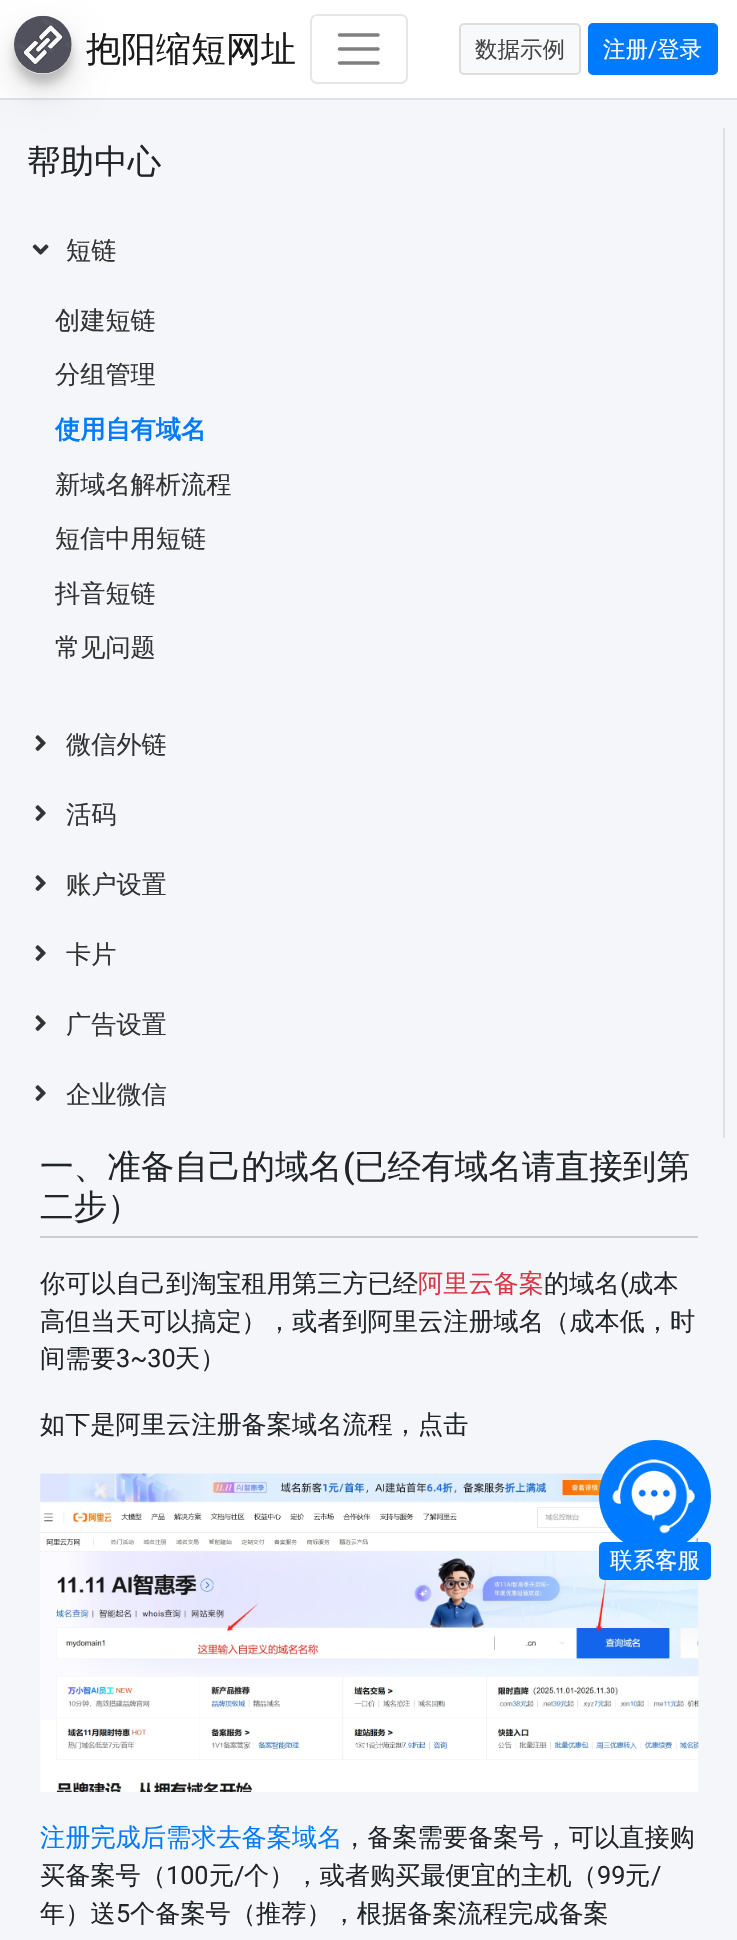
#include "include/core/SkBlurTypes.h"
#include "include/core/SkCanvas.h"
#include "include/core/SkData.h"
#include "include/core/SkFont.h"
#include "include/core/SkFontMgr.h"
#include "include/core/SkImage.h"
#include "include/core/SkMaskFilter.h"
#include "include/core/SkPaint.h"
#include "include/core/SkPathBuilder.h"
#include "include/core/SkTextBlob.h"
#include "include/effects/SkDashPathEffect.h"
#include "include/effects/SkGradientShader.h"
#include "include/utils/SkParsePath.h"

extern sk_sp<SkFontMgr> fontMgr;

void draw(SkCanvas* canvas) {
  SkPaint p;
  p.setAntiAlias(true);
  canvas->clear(SK_ColorWHITE);
  p.setColor(SkColorSetRGB(222, 226, 230));
  canvas->drawRect(SkRect::MakeLTRB(0, 98, 737, 100), p);
  p.setColor(SkColorSetRGB(244, 246, 249));
  canvas->drawRect(SkRect::MakeLTRB(0, 100, 737, 1940), p);
  canvas->save();
  canvas->clipPath(SkPathBuilder(SkPathFillType::kEvenOdd).moveTo(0, 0).lineTo(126, 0).lineTo(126, 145).lineTo(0, 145).close().moveTo(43, 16).cubicTo(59, 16, 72, 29, 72, 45).cubicTo(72, 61, 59, 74, 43, 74).cubicTo(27, 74, 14, 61, 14, 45).cubicTo(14, 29, 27, 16, 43, 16).close().detach(), true);
  p.setColor(SkColorSetARGB(38, 0, 0, 0));
  p.setMaskFilter(SkMaskFilter::MakeBlur(kNormal_SkBlurStyle, 17.5f));
  canvas->drawRoundRect(SkRect::MakeLTRB(14, 33, 72, 91), 29, 29, p);
  p.setMaskFilter(nullptr);
  canvas->restore();
  canvas->save();
  canvas->clipPath(SkPathBuilder(SkPathFillType::kEvenOdd).moveTo(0, 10).lineTo(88, 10).lineTo(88, 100).lineTo(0, 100).close().moveTo(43, 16).cubicTo(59, 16, 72, 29, 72, 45).cubicTo(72, 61, 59, 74, 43, 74).cubicTo(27, 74, 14, 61, 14, 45).cubicTo(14, 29, 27, 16, 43, 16).close().detach(), true);
  p.setColor(SkColorSetARGB(59, 51, 51, 51));
  p.setMaskFilter(SkMaskFilter::MakeBlur(kNormal_SkBlurStyle, 5));
  canvas->drawRoundRect(SkRect::MakeLTRB(14, 26, 72, 84), 29, 29, p);
  p.setMaskFilter(nullptr);
  canvas->restore();
  canvas->drawImageRect(SkImages::DeferredFromEncodedData(SkData::MakeFromFileName("images/1.png")), SkRect::MakeLTRB(14, 15, 72, 74), SkSamplingOptions());
  p.setStyle(SkPaint::kStroke_Style);
  p.setStrokeWidth(2);
  p.setColor(SkColorSetRGB(230, 230, 230));
  canvas->drawRoundRect(SkRect::MakeLTRB(311, 15, 407, 83), 6, 6, p);
  p.setStrokeWidth(3.5f);
  p.setStrokeCap(SkPaint::kRound_Cap);
  p.setColor(SkColorSetRGB(128, 128, 128));
  canvas->drawPath(SkPathBuilder().moveTo(339.5f, 35).lineTo(378, 35).moveTo(339.5f, 49).lineTo(378, 49).moveTo(339.5f, 63).lineTo(378, 63).detach(), p);
  p.setStyle(SkPaint::kFill_Style);
  p.setColor(SkColorSetRGB(248, 249, 250));
  canvas->drawRoundRect(SkRect::MakeLTRB(460, 24, 580, 74), 4, 4, p);
  p.setStyle(SkPaint::kStroke_Style);
  p.setStrokeWidth(2);
  p.setStrokeCap(SkPaint::kButt_Cap);
  p.setColor(SkColorSetRGB(221, 221, 221));
  canvas->drawRoundRect(SkRect::MakeLTRB(460, 24, 580, 74), 4, 4, p);
  p.setStyle(SkPaint::kFill_Style);
  p.setColor(SkColorSetRGB(0, 123, 255));
  canvas->drawRoundRect(SkRect::MakeLTRB(589, 24, 717, 74), 4, 4, p);
  p.setStyle(SkPaint::kStroke_Style);
  canvas->drawRoundRect(SkRect::MakeLTRB(589, 24, 717, 74), 4, 4, p);
  p.setStyle(SkPaint::kFill_Style);
  p.setColor(SkColorSetRGB(222, 226, 230));
  canvas->drawRect(SkRect::MakeLTRB(723, 128, 725, 1138), p);
  canvas->drawImageRect(SkImages::DeferredFromEncodedData(SkData::MakeFromFileName("images/2.png")), SkRect::MakeLTRB(32, 244, 49, 255), SkSamplingOptions());
  canvas->drawImageRect(SkImages::DeferredFromEncodedData(SkData::MakeFromFileName("images/3.png")), SkRect::MakeLTRB(35, 735, 46, 751), SkSamplingOptions());
  canvas->drawImageRect(SkImages::DeferredFromEncodedData(SkData::MakeFromFileName("images/3.png")), SkRect::MakeLTRB(35, 805, 46, 821), SkSamplingOptions());
  canvas->drawImageRect(SkImages::DeferredFromEncodedData(SkData::MakeFromFileName("images/3.png")), SkRect::MakeLTRB(35, 875, 46, 891), SkSamplingOptions());
  canvas->drawImageRect(SkImages::DeferredFromEncodedData(SkData::MakeFromFileName("images/3.png")), SkRect::MakeLTRB(35, 945, 46, 961), SkSamplingOptions());
  canvas->drawImageRect(SkImages::DeferredFromEncodedData(SkData::MakeFromFileName("images/3.png")), SkRect::MakeLTRB(35, 1015, 46, 1031), SkSamplingOptions());
  canvas->drawImageRect(SkImages::DeferredFromEncodedData(SkData::MakeFromFileName("images/3.png")), SkRect::MakeLTRB(35, 1085, 46, 1101), SkSamplingOptions());
  p.setColor(SkColorSetRGB(204, 204, 204));
  canvas->drawRect(SkRect::MakeLTRB(40, 1236, 698, 1238), p);
  canvas->drawImageRect(SkImages::DeferredFromEncodedData(SkData::MakeFromFileName("images/4.png")), SkRect::MakeLTRB(40, 1473, 699, 1792), SkSamplingOptions());
  p.setColor(SkColorSetRGB(0, 123, 255));
  canvas->drawCircle(655, 1496, 56, p);
  canvas->drawImageRect(SkImages::DeferredFromEncodedData(SkData::MakeFromFileName("images/5.png")), SkRect::MakeLTRB(612, 1459, 695, 1534), SkSamplingOptions());
  canvas->drawRoundRect(SkRect::MakeLTRB(599, 1542, 711, 1580), 5, 5, p);
  SkFont font1(fontMgr->matchFamilyStyle("WenQuanYi Zen Hei", SkFontStyle(500, SkFontStyle::kNormal_Width, SkFontStyle::kUpright_Slant)), 35);
  font1.setSubpixel(true);
  p.setColor(SkColorSetRGB(26, 26, 26));
  canvas->drawString("抱阳缩短网址", 86, 61, font1, p);
  SkFont font2(fontMgr->matchFamilyStyle("WenQuanYi Zen Hei", SkFontStyle(500, SkFontStyle::kNormal_Width, SkFontStyle::kUpright_Slant)), 22.5f);
  font2.setSubpixel(true);
  p.setColor(SkColorSetRGB(68, 68, 68));
  canvas->drawString("数据示例", 475, 57, font2, p);
  p.setColor(SK_ColorWHITE);
  canvas->drawString("注册", 603, 57, font2, p);
  SkFont font3(fontMgr->matchFamilyStyle("Roboto", SkFontStyle::Normal()), 22.5f);
  font3.setSubpixel(true);
  canvas->drawString("/", 648, 57, font3, p);
  canvas->drawString("登录", 657, 57, font2, p);
  SkFont font4(fontMgr->matchFamilyStyle("WenQuanYi Zen Hei", SkFontStyle(500, SkFontStyle::kNormal_Width, SkFontStyle::kUpright_Slant)), 33.6f);
  font4.setSubpixel(true);
  p.setColor(SkColorSetRGB(33, 37, 41));
  canvas->drawString("帮助中心", 27, 173, font4, p);
  SkFont font5(fontMgr->matchFamilyStyle("WenQuanYi Zen Hei", SkFontStyle(500, SkFontStyle::kNormal_Width, SkFontStyle::kUpright_Slant)), 25.2f);
  font5.setSubpixel(true);
  p.setColor(SkColorSetRGB(51, 51, 51));
  canvas->drawString("短链", 66, 259, font5, p);
  canvas->drawString("创建短链", 55, 329, font5, p);
  canvas->drawString("分组管理", 55, 383, font5, p);
  SkFont font6(fontMgr->matchFamilyStyle("WenQuanYi Zen Hei", SkFontStyle::Bold()), 25.2f);
  font6.setSubpixel(true);
  p.setColor(SkColorSetRGB(0, 123, 255));
  canvas->drawString("使用自有域名", 55, 438, font6, p);
  p.setColor(SkColorSetRGB(51, 51, 51));
  canvas->drawString("新域名解析流程", 55, 493, font5, p);
  canvas->drawString("短信中用短链", 55, 547, font5, p);
  canvas->drawString("抖音短链", 55, 602, font5, p);
  canvas->drawString("常见问题", 55, 656, font5, p);
  canvas->drawString("微信外链", 66, 753, font5, p);
  canvas->drawString("活码", 66, 823, font5, p);
  canvas->drawString("账户设置", 66, 893, font5, p);
  canvas->drawString("卡片", 66, 963, font5, p);
  canvas->drawString("广告设置", 66, 1033, font5, p);
  canvas->drawString("企业微信", 66, 1103, font5, p);
  p.setColor(SkColorSetRGB(33, 37, 41));
  canvas->drawString("一、准备自己的域名", 40, 1178, font4, p);
  SkFont font7(fontMgr->matchFamilyStyle("Roboto", SkFontStyle(500, SkFontStyle::kNormal_Width, SkFontStyle::kUpright_Slant)), 33.6f);
  font7.setSubpixel(true);
  canvas->drawString("(", 343, 1178, font7, p);
  canvas->drawString("已经有域名请直接到第", 354, 1178, font4, p);
  canvas->drawString("二步）", 40, 1218, font4, p);
  canvas->drawString("你可以自己到淘宝租用第三方已经", 40, 1292, font5, p);
  p.setColor(SkColorSetRGB(220, 53, 69));
  canvas->drawString("阿里云备案", 418, 1292, font5, p);
  p.setColor(SkColorSetRGB(33, 37, 41));
  canvas->drawString("的域名", 544, 1292, font5, p);
  SkFont font8(fontMgr->matchFamilyStyle("Roboto", SkFontStyle::Normal()), 25.2f);
  font8.setSubpixel(true);
  canvas->drawString("(", 620, 1292, font8, p);
  canvas->drawString("成本", 628, 1292, font5, p);
  canvas->drawString("高但当天可以搞定），或者到阿里云注册域名（成本低，时", 40, 1330, font5, p);
  canvas->drawString("间需要", 40, 1367, font5, p);
  canvas->drawString("3~30", 116, 1367, font8, p);
  canvas->drawString("天）", 175, 1367, font5, p);
  canvas->drawString("如下是阿里云注册备案域名流程，点击", 40, 1433, font5, p);
  p.setColor(SkColorSetRGB(0, 123, 255));
  canvas->drawString("注册完成后需求去备案域名", 40, 1846, font5, p);
  p.setColor(SkColorSetRGB(33, 37, 41));
  canvas->drawString("，备案需要备案号，可以直接购", 342, 1846, font5, p);
  canvas->drawString("买备案号（", 40, 1884, font5, p);
  canvas->drawString("100", 166, 1884, font8, p);
  canvas->drawString("元", 209, 1884, font5, p);
  canvas->drawString("/", 234, 1884, font8, p);
  canvas->drawString("个），或者购买最便宜的主机（", 244, 1884, font5, p);
  canvas->drawString("99", 597, 1884, font8, p);
  canvas->drawString("元", 625, 1884, font5, p);
  canvas->drawString("/", 651, 1884, font8, p);
  canvas->drawString("年）送", 40, 1922, font5, p);
  canvas->drawString("5", 116, 1922, font8, p);
  canvas->drawString("个备案号（推荐），根据备案流程完成备案", 130, 1922, font5, p);
  p.setColor(SK_ColorWHITE);
  canvas->drawString("联系客服", 610, 1568, font2, p);
}
